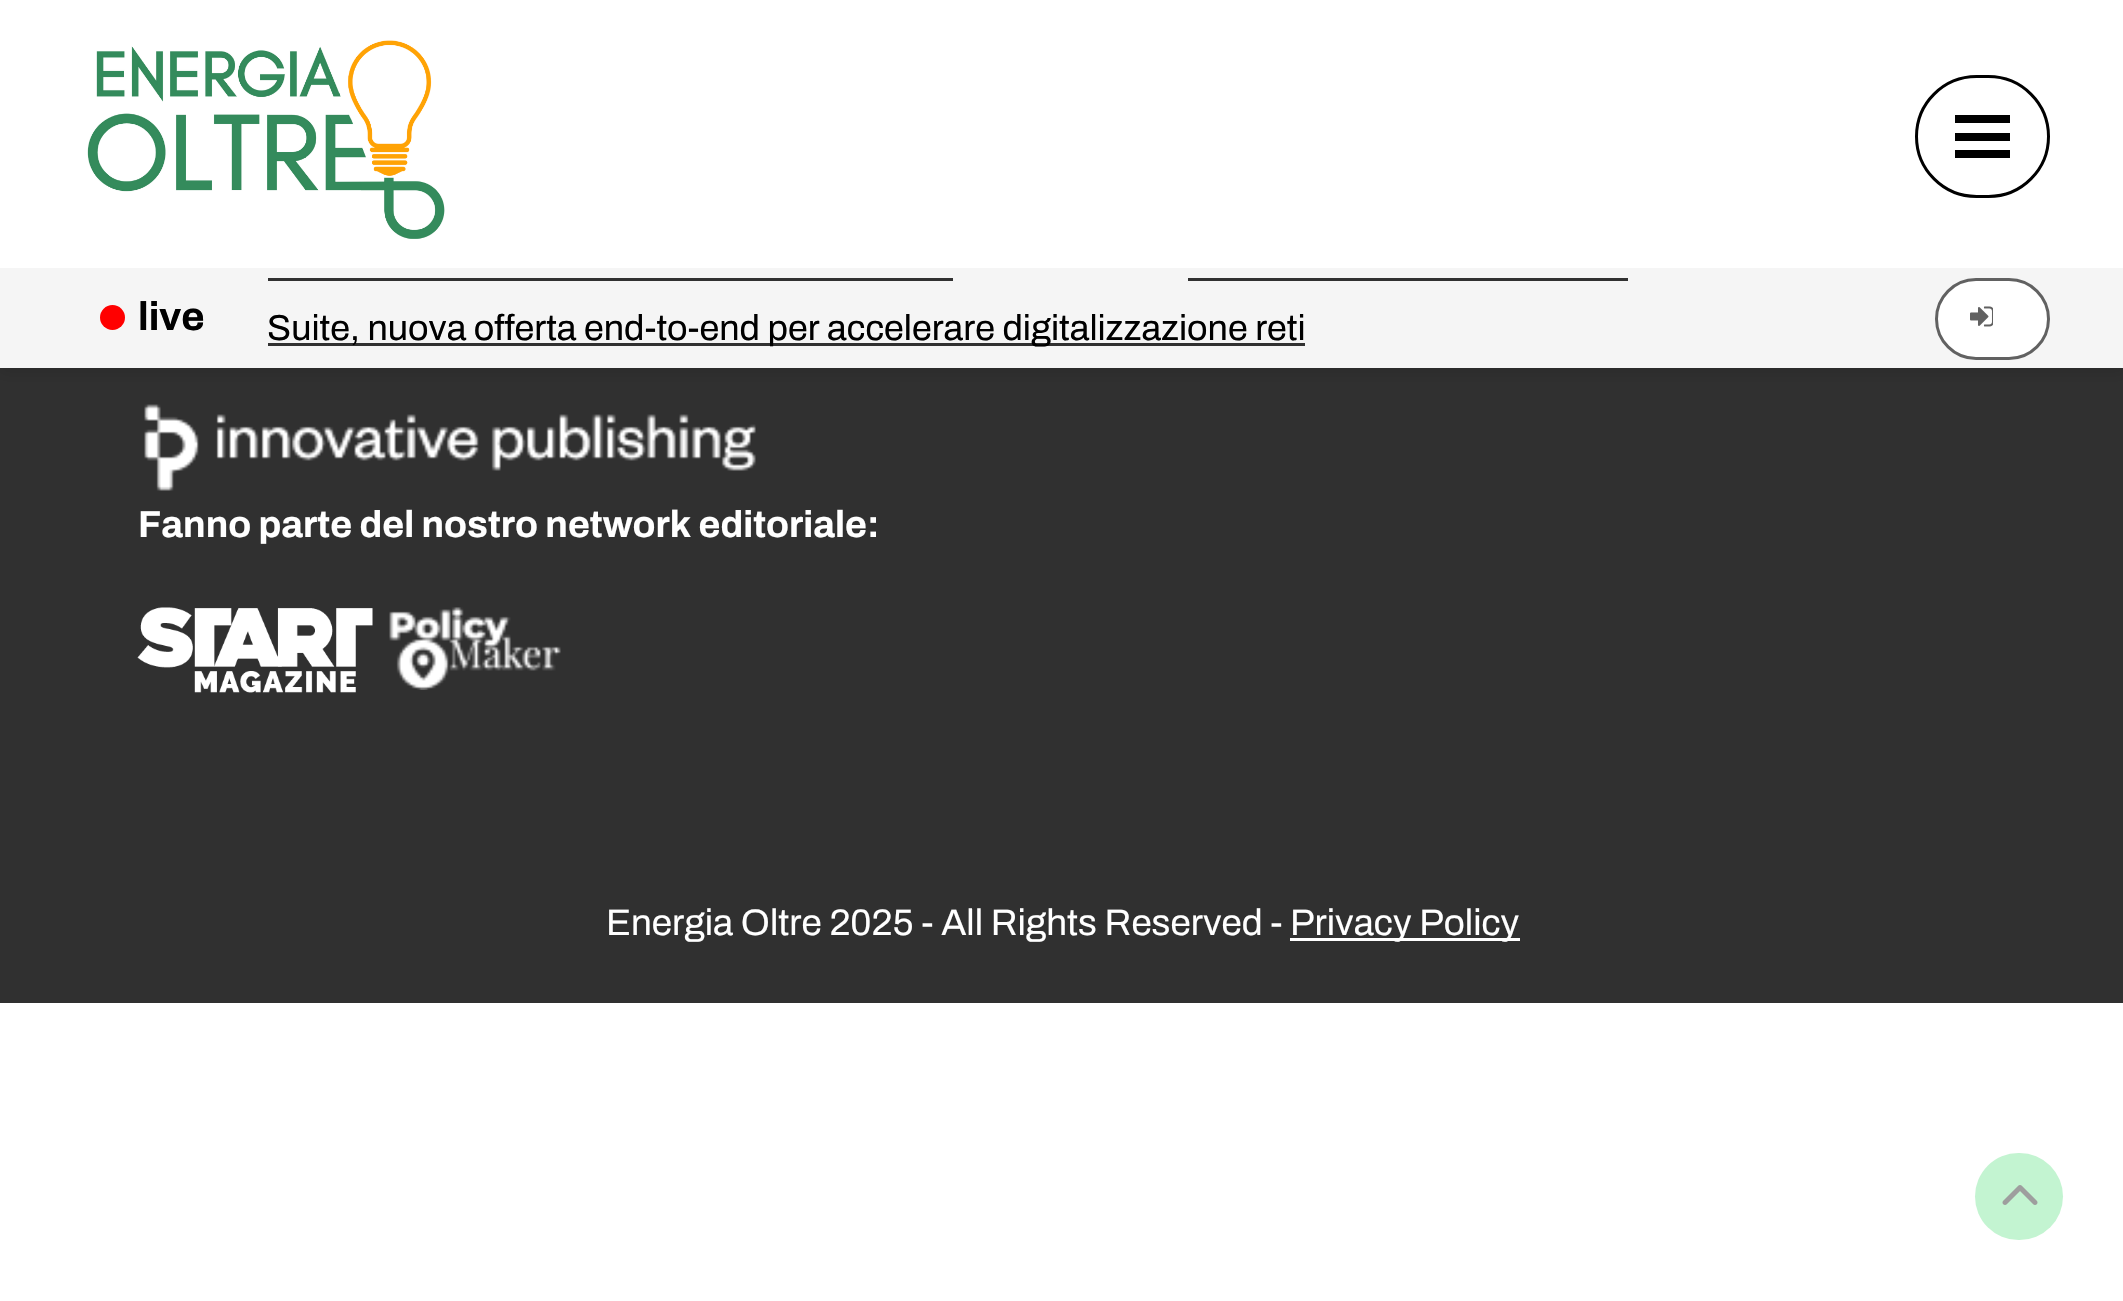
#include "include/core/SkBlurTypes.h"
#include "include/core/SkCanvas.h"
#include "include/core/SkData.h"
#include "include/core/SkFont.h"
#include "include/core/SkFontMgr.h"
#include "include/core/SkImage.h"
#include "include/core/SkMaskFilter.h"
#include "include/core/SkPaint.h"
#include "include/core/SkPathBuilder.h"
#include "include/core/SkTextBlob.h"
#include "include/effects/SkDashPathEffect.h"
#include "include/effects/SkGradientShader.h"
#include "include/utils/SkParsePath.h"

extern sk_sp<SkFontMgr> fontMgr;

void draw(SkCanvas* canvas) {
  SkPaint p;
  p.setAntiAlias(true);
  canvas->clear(SK_ColorWHITE);
  canvas->drawImageRect(SkImages::DeferredFromEncodedData(SkData::MakeFromFileName("images/1.png")), SkRect::MakeLTRB(0, 1003, 2123, 1301), SkSamplingOptions());
  p.setColor(SkColorSetRGB(48, 48, 48));
  canvas->drawRect(SkRect::MakeLTRB(0, 368, 2123, 1003), p);
  p.setColor(SkColorSetARGB(26, 0, 0, 0));
  p.setMaskFilter(SkMaskFilter::MakeBlur(kNormal_SkBlurStyle, 6));
  canvas->drawRect(SkRect::MakeLTRB(0, 5, 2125, 373), p);
  p.setMaskFilter(nullptr);
  p.setColor(SK_ColorWHITE);
  canvas->drawRect(SkRect::MakeLTRB(0, 0, 2123, 268), p);
  canvas->drawImageRect(SkImages::DeferredFromEncodedData(SkData::MakeFromFileName("images/2.png")), SkRect::MakeLTRB(87, 40, 445, 239), SkSamplingOptions());
  p.setStyle(SkPaint::kStroke_Style);
  p.setStrokeWidth(3);
  p.setColor(SK_ColorBLACK);
  canvas->drawRoundRect(SkRect::MakeLTRB(1916.5f, 76.5f, 2048.5f, 196.5f), 60, 60, p);
  p.setStyle(SkPaint::kFill_Style);
  canvas->drawRect(SkRect::MakeLTRB(1955, 133, 2010, 141), p);
  canvas->drawRect(SkRect::MakeLTRB(1955, 115, 2010, 123), p);
  canvas->drawRect(SkRect::MakeLTRB(1955, 150, 2010, 158), p);
  p.setColor(SkColorSetRGB(245, 245, 245));
  canvas->drawRect(SkRect::MakeLTRB(0, 268, 2123, 368), p);
  p.setColor(SkColorSetRGB(255, 0, 0));
  canvas->drawCircle(112.5f, 317.5f, 12.5f, p);
  p.setColor(SkColorSetRGB(49, 49, 49));
  canvas->drawRect(SkRect::MakeLTRB(268, 278, 953, 281), p);
  canvas->drawRect(SkRect::MakeLTRB(1188, 278, 1628, 281), p);
  canvas->drawRect(SkRect::MakeLTRB(268, 343, 1305, 346), p);
  p.setColor(SK_ColorWHITE);
  canvas->drawRoundRect(SkRect::MakeLTRB(1936.5f, 279.5f, 2048.5f, 358.5f), 39.5f, 39.5f, p);
  p.setStyle(SkPaint::kStroke_Style);
  p.setColor(SkColorSetRGB(97, 97, 97));
  canvas->drawRoundRect(SkRect::MakeLTRB(1936.5f, 279.5f, 2048.5f, 358.5f), 39.5f, 39.5f, p);
  canvas->drawImageRect(SkImages::DeferredFromEncodedData(SkData::MakeFromFileName("images/3.png")), SkRect::MakeLTRB(1970, 306, 1993, 327), SkSamplingOptions());
  canvas->drawImageRect(SkImages::DeferredFromEncodedData(SkData::MakeFromFileName("images/4.png")), SkRect::MakeLTRB(144, 404, 756, 491), SkSamplingOptions());
  canvas->drawImageRect(SkImages::DeferredFromEncodedData(SkData::MakeFromFileName("images/5.png")), SkRect::MakeLTRB(137, 607, 373, 693), SkSamplingOptions());
  canvas->drawImageRect(SkImages::DeferredFromEncodedData(SkData::MakeFromFileName("images/6.png")), SkRect::MakeLTRB(389, 607, 561, 690), SkSamplingOptions());
  p.setStyle(SkPaint::kFill_Style);
  p.setColor(SK_ColorWHITE);
  canvas->drawRect(SkRect::MakeLTRB(1290, 938, 1520, 941), p);
  p.setColor(SkColorSetRGB(195, 244, 209));
  canvas->drawRoundRect(SkRect::MakeLTRB(1975, 1153, 2063, 1240), 43.5f, 43.5f, p);
  canvas->drawImageRect(SkImages::DeferredFromEncodedData(SkData::MakeFromFileName("images/7.png")), SkRect::MakeLTRB(2002, 1185, 2038, 1205), SkSamplingOptions());
  SkFont font1(fontMgr->matchFamilyStyle("Archivo", SkFontStyle::Bold()), 40);
  font1.setSubpixel(true);
  p.setColor(SK_ColorBLACK);
  canvas->drawString("live", 138, 330, font1, p);
  SkFont font2(fontMgr->matchFamilyStyle("Archivo", SkFontStyle::Normal()), 36);
  font2.setSubpixel(true);
  canvas->drawString("Suite, nuova offerta end-to-end per accelerare digitalizzazione reti", 267, 340, font2, p);
  SkFont font3(fontMgr->matchFamilyStyle("Archivo", SkFontStyle::Bold()), 37.5f);
  font3.setSubpixel(true);
  p.setColor(SK_ColorWHITE);
  canvas->drawString("Fanno parte del nostro network editoriale:", 138, 537, font3, p);
  SkFont font4(fontMgr->matchFamilyStyle("Archivo", SkFontStyle::Normal()), 36.9f);
  font4.setSubpixel(true);
  canvas->drawString("Energia Oltre 2025 - All Rights Reserved -", 606, 935, font4, p);
  canvas->drawString("Privacy Policy", 1290, 935, font4, p);
}
